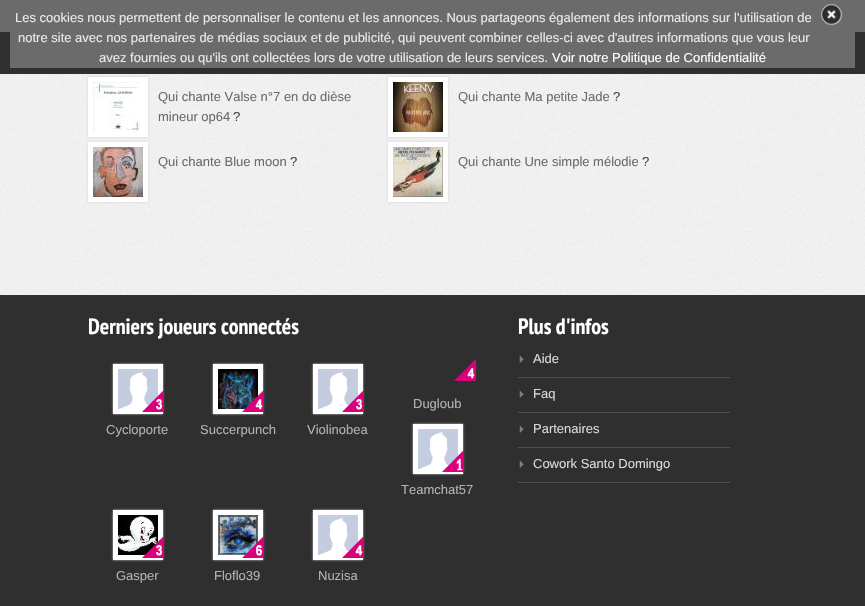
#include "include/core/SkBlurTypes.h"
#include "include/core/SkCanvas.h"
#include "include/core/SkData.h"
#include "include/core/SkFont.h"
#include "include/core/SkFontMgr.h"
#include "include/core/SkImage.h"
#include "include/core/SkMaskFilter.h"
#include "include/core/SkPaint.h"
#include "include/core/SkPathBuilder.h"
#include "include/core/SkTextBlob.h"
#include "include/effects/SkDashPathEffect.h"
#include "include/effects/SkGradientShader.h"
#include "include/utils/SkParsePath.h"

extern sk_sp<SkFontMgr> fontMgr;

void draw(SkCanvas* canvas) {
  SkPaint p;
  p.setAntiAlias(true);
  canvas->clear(SK_ColorWHITE);
  canvas->drawImageRect(SkImages::DeferredFromEncodedData(SkData::MakeFromFileName("images/1.png")), SkRect::MakeLTRB(0, 74, 865, 295), SkSamplingOptions());
  p.setColor(SkColorSetRGB(107, 107, 107));
  canvas->drawRect(SkRect::MakeLTRB(0, 0, 865, 32), p);
  p.setColor(SkColorSetRGB(204, 204, 204));
  p.setMaskFilter(SkMaskFilter::MakeBlur(kNormal_SkBlurStyle, 1));
  canvas->drawRect(SkRect::MakeLTRB(88, 77, 148, 137), p);
  p.setMaskFilter(nullptr);
  p.setMaskFilter(SkMaskFilter::MakeBlur(kNormal_SkBlurStyle, 1));
  canvas->drawRect(SkRect::MakeLTRB(388, 77, 448, 137), p);
  p.setMaskFilter(nullptr);
  p.setColor(SkColorSetRGB(47, 47, 47));
  canvas->drawRect(SkRect::MakeLTRB(0, 32, 865, 74), p);
  p.setColor(SkColorSetRGB(107, 107, 107));
  canvas->drawRect(SkRect::MakeLTRB(10, 32, 855, 68), p);
  canvas->drawImageRect(SkImages::DeferredFromEncodedData(SkData::MakeFromFileName("images/2.png")), SkRect::MakeLTRB(821, 4, 843, 26), SkSamplingOptions());
  p.setColor(SK_ColorWHITE);
  canvas->drawRect(SkRect::MakeLTRB(88, 77, 148, 137), p);
  canvas->drawImageRect(SkImages::DeferredFromEncodedData(SkData::MakeFromFileName("images/3.png")), SkRect::MakeLTRB(93, 82, 143, 132), SkSamplingOptions());
  canvas->drawRect(SkRect::MakeLTRB(388, 77, 448, 137), p);
  canvas->drawImageRect(SkImages::DeferredFromEncodedData(SkData::MakeFromFileName("images/4.png")), SkRect::MakeLTRB(393, 82, 443, 132), SkSamplingOptions());
  p.setColor(SkColorSetRGB(204, 204, 204));
  p.setMaskFilter(SkMaskFilter::MakeBlur(kNormal_SkBlurStyle, 1));
  canvas->drawRect(SkRect::MakeLTRB(88, 142, 148, 202), p);
  p.setMaskFilter(nullptr);
  p.setColor(SK_ColorWHITE);
  canvas->drawRect(SkRect::MakeLTRB(88, 142, 148, 202), p);
  canvas->drawImageRect(SkImages::DeferredFromEncodedData(SkData::MakeFromFileName("images/5.png")), SkRect::MakeLTRB(93, 147, 143, 197), SkSamplingOptions());
  p.setColor(SkColorSetRGB(204, 204, 204));
  p.setMaskFilter(SkMaskFilter::MakeBlur(kNormal_SkBlurStyle, 1));
  canvas->drawRect(SkRect::MakeLTRB(388, 142, 448, 202), p);
  p.setMaskFilter(nullptr);
  p.setColor(SK_ColorWHITE);
  canvas->drawRect(SkRect::MakeLTRB(388, 142, 448, 202), p);
  canvas->drawImageRect(SkImages::DeferredFromEncodedData(SkData::MakeFromFileName("images/6.png")), SkRect::MakeLTRB(393, 147, 443, 197), SkSamplingOptions());
  p.setColor(SkColorSetRGB(47, 47, 47));
  canvas->drawRect(SkRect::MakeLTRB(0, 295, 865, 606), p);
  canvas->drawImageRect(SkImages::DeferredFromEncodedData(SkData::MakeFromFileName("images/7.png")), SkRect::MakeLTRB(454, 359, 476, 381), SkSamplingOptions());
  p.setColor(SkColorSetRGB(204, 204, 204));
  p.setMaskFilter(SkMaskFilter::MakeBlur(kNormal_SkBlurStyle, 1));
  canvas->drawRect(SkRect::MakeLTRB(113, 364, 163, 414), p);
  p.setMaskFilter(nullptr);
  p.setColor(SK_ColorWHITE);
  canvas->drawRect(SkRect::MakeLTRB(113, 364, 163, 414), p);
  canvas->drawImageRect(SkImages::DeferredFromEncodedData(SkData::MakeFromFileName("images/8.png")), SkRect::MakeLTRB(118, 369, 158, 409), SkSamplingOptions());
  canvas->drawImageRect(SkImages::DeferredFromEncodedData(SkData::MakeFromFileName("images/9.png")), SkRect::MakeLTRB(142, 390, 164, 412), SkSamplingOptions());
  p.setColor(SkColorSetRGB(204, 204, 204));
  p.setMaskFilter(SkMaskFilter::MakeBlur(kNormal_SkBlurStyle, 1));
  canvas->drawRect(SkRect::MakeLTRB(213, 364, 263, 414), p);
  p.setMaskFilter(nullptr);
  p.setColor(SK_ColorWHITE);
  canvas->drawRect(SkRect::MakeLTRB(213, 364, 263, 414), p);
  canvas->drawImageRect(SkImages::DeferredFromEncodedData(SkData::MakeFromFileName("images/10.png")), SkRect::MakeLTRB(218, 369, 258, 409), SkSamplingOptions());
  canvas->drawImageRect(SkImages::DeferredFromEncodedData(SkData::MakeFromFileName("images/11.png")), SkRect::MakeLTRB(242, 390, 264, 412), SkSamplingOptions());
  p.setColor(SkColorSetRGB(204, 204, 204));
  p.setMaskFilter(SkMaskFilter::MakeBlur(kNormal_SkBlurStyle, 1));
  canvas->drawRect(SkRect::MakeLTRB(313, 364, 363, 414), p);
  p.setMaskFilter(nullptr);
  p.setColor(SK_ColorWHITE);
  canvas->drawRect(SkRect::MakeLTRB(313, 364, 363, 414), p);
  canvas->drawImageRect(SkImages::DeferredFromEncodedData(SkData::MakeFromFileName("images/8.png")), SkRect::MakeLTRB(318, 369, 358, 409), SkSamplingOptions());
  canvas->drawImageRect(SkImages::DeferredFromEncodedData(SkData::MakeFromFileName("images/9.png")), SkRect::MakeLTRB(342, 390, 364, 412), SkSamplingOptions());
  p.setColor(SkColorSetRGB(204, 204, 204));
  p.setMaskFilter(SkMaskFilter::MakeBlur(kNormal_SkBlurStyle, 1));
  canvas->drawRect(SkRect::MakeLTRB(413, 424, 463, 474), p);
  p.setMaskFilter(nullptr);
  p.setColor(SK_ColorWHITE);
  canvas->drawRect(SkRect::MakeLTRB(413, 424, 463, 474), p);
  canvas->drawImageRect(SkImages::DeferredFromEncodedData(SkData::MakeFromFileName("images/8.png")), SkRect::MakeLTRB(418, 429, 458, 469), SkSamplingOptions());
  canvas->drawImageRect(SkImages::DeferredFromEncodedData(SkData::MakeFromFileName("images/12.png")), SkRect::MakeLTRB(442, 450, 464, 472), SkSamplingOptions());
  p.setColor(SkColorSetRGB(204, 204, 204));
  p.setMaskFilter(SkMaskFilter::MakeBlur(kNormal_SkBlurStyle, 1));
  canvas->drawRect(SkRect::MakeLTRB(113, 510, 163, 560), p);
  p.setMaskFilter(nullptr);
  p.setColor(SK_ColorWHITE);
  canvas->drawRect(SkRect::MakeLTRB(113, 510, 163, 560), p);
  canvas->drawImageRect(SkImages::DeferredFromEncodedData(SkData::MakeFromFileName("images/13.png")), SkRect::MakeLTRB(118, 515, 158, 555), SkSamplingOptions());
  canvas->drawImageRect(SkImages::DeferredFromEncodedData(SkData::MakeFromFileName("images/14.png")), SkRect::MakeLTRB(142, 536, 164, 558), SkSamplingOptions());
  p.setColor(SkColorSetRGB(204, 204, 204));
  p.setMaskFilter(SkMaskFilter::MakeBlur(kNormal_SkBlurStyle, 1));
  canvas->drawRect(SkRect::MakeLTRB(213, 510, 263, 560), p);
  p.setMaskFilter(nullptr);
  p.setColor(SK_ColorWHITE);
  canvas->drawRect(SkRect::MakeLTRB(213, 510, 263, 560), p);
  canvas->drawImageRect(SkImages::DeferredFromEncodedData(SkData::MakeFromFileName("images/15.png")), SkRect::MakeLTRB(218, 515, 258, 555), SkSamplingOptions());
  canvas->drawImageRect(SkImages::DeferredFromEncodedData(SkData::MakeFromFileName("images/16.png")), SkRect::MakeLTRB(242, 536, 264, 558), SkSamplingOptions());
  p.setColor(SkColorSetRGB(204, 204, 204));
  p.setMaskFilter(SkMaskFilter::MakeBlur(kNormal_SkBlurStyle, 1));
  canvas->drawRect(SkRect::MakeLTRB(313, 510, 363, 560), p);
  p.setMaskFilter(nullptr);
  p.setColor(SK_ColorWHITE);
  canvas->drawRect(SkRect::MakeLTRB(313, 510, 363, 560), p);
  canvas->drawImageRect(SkImages::DeferredFromEncodedData(SkData::MakeFromFileName("images/8.png")), SkRect::MakeLTRB(318, 515, 358, 555), SkSamplingOptions());
  canvas->drawImageRect(SkImages::DeferredFromEncodedData(SkData::MakeFromFileName("images/17.png")), SkRect::MakeLTRB(342, 536, 364, 558), SkSamplingOptions());
  canvas->drawImageRect(SkImages::DeferredFromEncodedData(SkData::MakeFromFileName("images/18.png")), SkRect::MakeLTRB(518, 355, 730, 378), SkSamplingOptions());
  canvas->drawImageRect(SkImages::DeferredFromEncodedData(SkData::MakeFromFileName("images/18.png")), SkRect::MakeLTRB(518, 390, 730, 413), SkSamplingOptions());
  canvas->drawImageRect(SkImages::DeferredFromEncodedData(SkData::MakeFromFileName("images/18.png")), SkRect::MakeLTRB(518, 425, 730, 448), SkSamplingOptions());
  canvas->drawImageRect(SkImages::DeferredFromEncodedData(SkData::MakeFromFileName("images/18.png")), SkRect::MakeLTRB(518, 460, 730, 483), SkSamplingOptions());
  SkFont font1(fontMgr->matchFamilyStyle("Liberation Sans", SkFontStyle::Normal()), 13);
  font1.setSubpixel(true);
  p.setColor(SkColorSetRGB(233, 233, 233));
  canvas->drawString("Les cookies nous permettent de personnaliser le contenu et les annonces. Nous partageons également des informations sur l'utilisation de", 15, 22, font1, p);
  canvas->drawString("notre site avec nos partenaires de médias sociaux et de publicité, qui peuvent combiner celles-ci avec d'autres informations que vous leur", 18, 42, font1, p);
  canvas->drawString("avez fournies ou qu'ils ont collectées lors de votre utilisation de leurs services.", 99, 62, font1, p);
  p.setColor(SK_ColorWHITE);
  canvas->drawString("Voir notre Politique de Confidentialité", 552, 62, font1, p);
  p.setColor(SkColorSetRGB(107, 107, 107));
  canvas->drawString("Qui chante Valse n°7 en do dièse", 158, 101, font1, p);
  canvas->drawString("mineur op64", 158, 121, font1, p);
  p.setColor(SkColorSetRGB(68, 68, 68));
  canvas->drawString("?", 233, 121, font1, p);
  p.setColor(SkColorSetRGB(107, 107, 107));
  canvas->drawString("Qui chante Ma petite Jade", 458, 101, font1, p);
  p.setColor(SkColorSetRGB(68, 68, 68));
  canvas->drawString("?", 613, 101, font1, p);
  p.setColor(SkColorSetRGB(107, 107, 107));
  canvas->drawString("Qui chante Blue moon", 158, 166, font1, p);
  p.setColor(SkColorSetRGB(68, 68, 68));
  canvas->drawString("?", 290, 166, font1, p);
  p.setColor(SkColorSetRGB(107, 107, 107));
  canvas->drawString("Qui chante Une simple mélodie", 458, 166, font1, p);
  p.setColor(SkColorSetRGB(68, 68, 68));
  canvas->drawString("?", 642, 166, font1, p);
  SkFont font2(fontMgr->matchFamilyStyle("PT Sans Narrow", SkFontStyle::Bold()), 22);
  font2.setSubpixel(true);
  p.setColor(SK_ColorWHITE);
  canvas->drawString("Derniers joueurs connectés", 88, 334, font2, p);
  p.setColor(SkColorSetRGB(178, 178, 178));
  canvas->drawString("Dugloub", 413, 408, font1, p);
  canvas->drawString("Cycloporte", 106, 434, font1, p);
  canvas->drawString("Succerpunch", 200, 434, font1, p);
  canvas->drawString("Violinobea", 307, 434, font1, p);
  canvas->drawString("Teamchat57", 401, 494, font1, p);
  canvas->drawString("Gasper", 116, 580, font1, p);
  canvas->drawString("Floflo39", 214, 580, font1, p);
  canvas->drawString("Nuzisa", 318, 580, font1, p);
  p.setColor(SK_ColorWHITE);
  canvas->drawString("Plus d'infos", 518, 334, font2, p);
  p.setColor(SkColorSetRGB(218, 218, 218));
  canvas->drawString("Aide", 533, 363, font1, p);
  canvas->drawString("Faq", 533, 398, font1, p);
  canvas->drawString("Partenaires", 533, 433, font1, p);
  canvas->drawString("Cowork Santo Domingo", 533, 468, font1, p);
}
